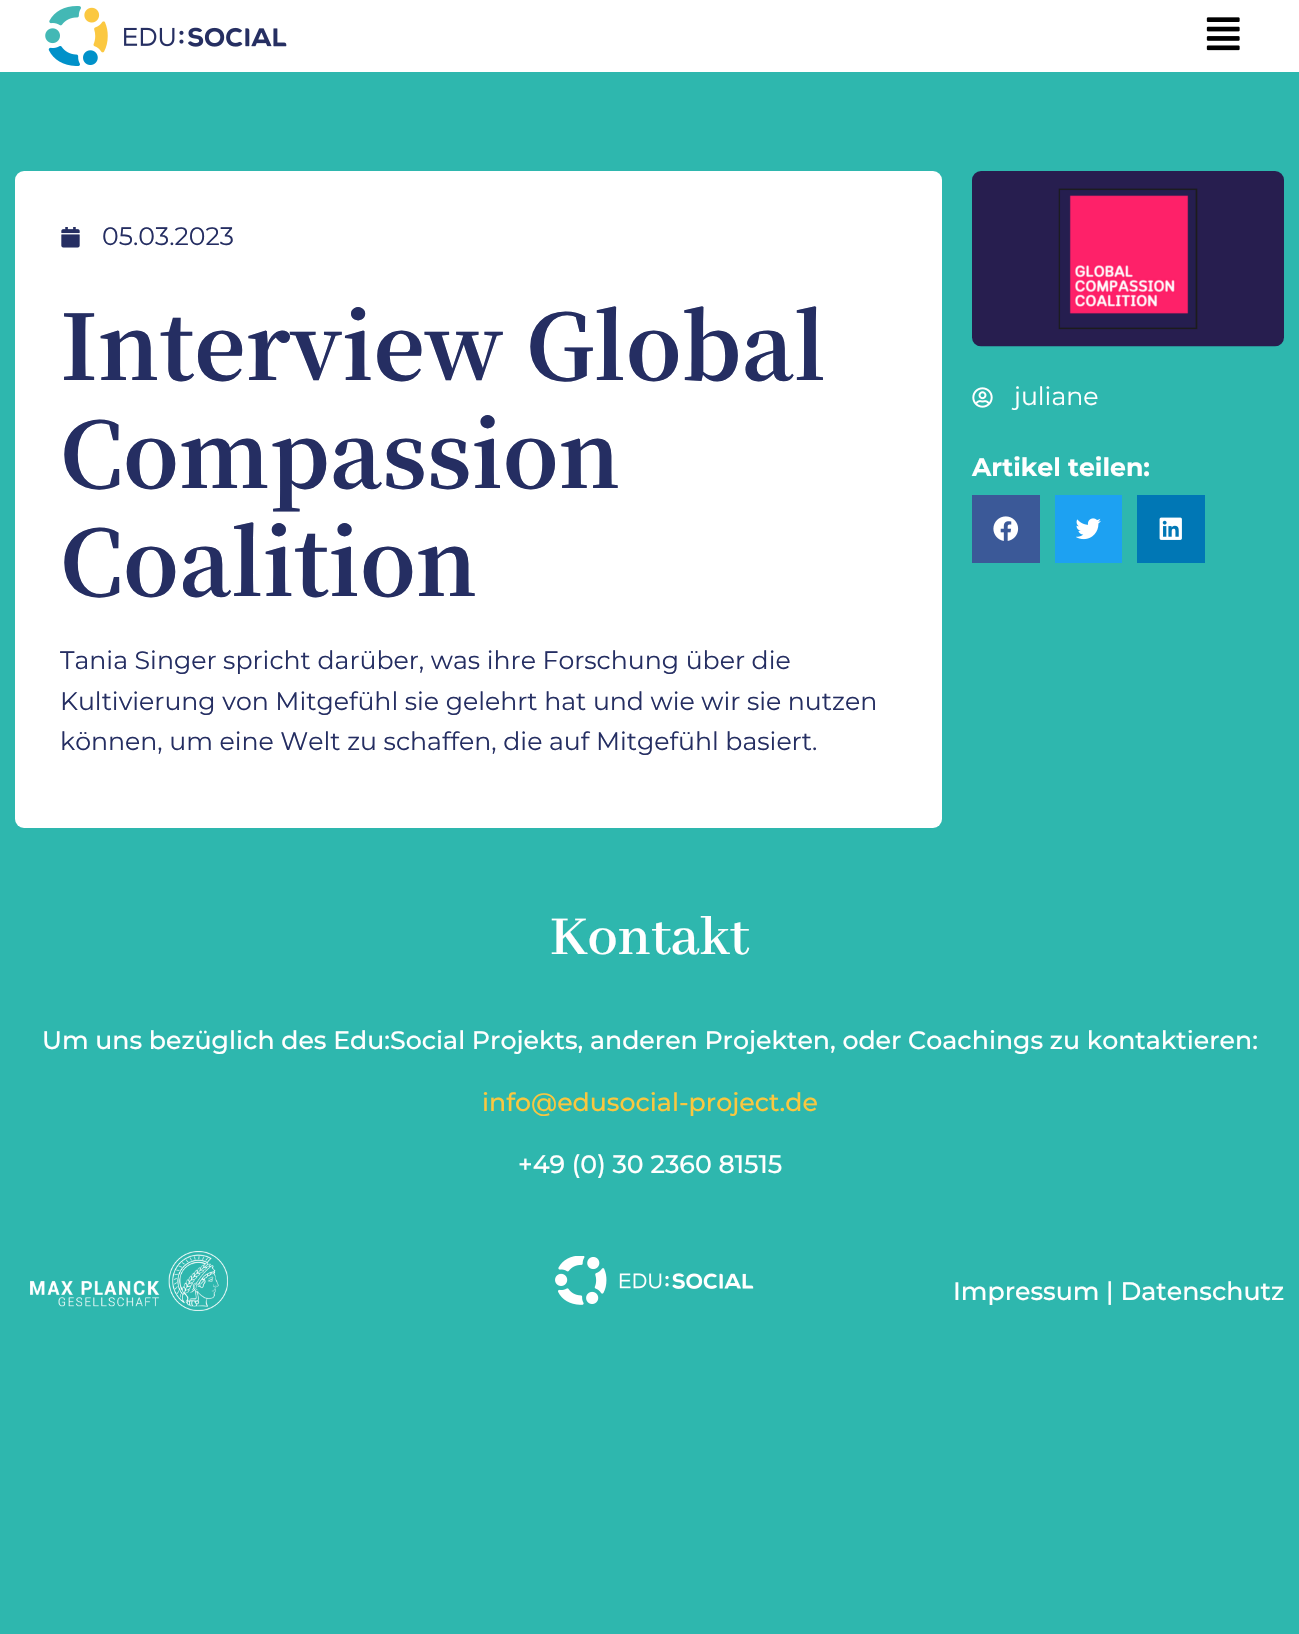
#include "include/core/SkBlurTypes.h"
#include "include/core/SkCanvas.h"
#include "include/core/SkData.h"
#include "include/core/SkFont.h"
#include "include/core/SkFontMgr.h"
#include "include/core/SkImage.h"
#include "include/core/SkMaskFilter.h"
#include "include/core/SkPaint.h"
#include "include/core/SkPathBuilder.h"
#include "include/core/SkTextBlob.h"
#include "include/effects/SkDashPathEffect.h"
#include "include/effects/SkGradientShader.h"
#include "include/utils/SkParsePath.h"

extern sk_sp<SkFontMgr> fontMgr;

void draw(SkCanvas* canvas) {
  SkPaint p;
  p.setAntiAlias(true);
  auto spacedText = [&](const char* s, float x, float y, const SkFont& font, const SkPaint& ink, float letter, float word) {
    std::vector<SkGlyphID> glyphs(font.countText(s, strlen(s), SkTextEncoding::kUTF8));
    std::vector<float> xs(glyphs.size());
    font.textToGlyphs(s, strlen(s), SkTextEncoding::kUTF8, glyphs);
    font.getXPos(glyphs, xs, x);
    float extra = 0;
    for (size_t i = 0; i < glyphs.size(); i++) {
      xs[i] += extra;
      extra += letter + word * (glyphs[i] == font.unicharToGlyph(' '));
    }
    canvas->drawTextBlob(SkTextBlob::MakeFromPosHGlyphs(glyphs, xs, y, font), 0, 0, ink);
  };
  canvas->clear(SkColorSetRGB(46, 183, 174));
  p.setColor(SK_ColorWHITE);
  canvas->drawRect(SkRect::MakeLTRB(0, 0, 1299, 72), p);
  canvas->drawImageRect(SkImages::DeferredFromEncodedData(SkData::MakeFromFileName("images/1.png")), SkRect::MakeLTRB(45, 6, 287, 66), SkSamplingOptions());
  canvas->drawImageRect(SkImages::DeferredFromEncodedData(SkData::MakeFromFileName("images/2.png")), SkRect::MakeLTRB(1206, 17, 1240, 51), SkSamplingOptions());
  canvas->drawRoundRect(SkRect::MakeLTRB(15, 171, 942, 828), 9, 9, p);
  canvas->drawImageRect(SkImages::DeferredFromEncodedData(SkData::MakeFromFileName("images/3.png")), SkRect::MakeLTRB(61, 227, 80, 248), SkSamplingOptions());
  canvas->drawImageRect(SkImages::DeferredFromEncodedData(SkData::MakeFromFileName("images/4.png")), SkRect::MakeLTRB(972, 171, 1284, 347), SkSamplingOptions());
  canvas->drawImageRect(SkImages::DeferredFromEncodedData(SkData::MakeFromFileName("images/5.png")), SkRect::MakeLTRB(972, 387, 993, 408), SkSamplingOptions());
  p.setColor(SkColorSetRGB(59, 89, 152));
  canvas->drawRect(SkRect::MakeLTRB(972, 495, 1040, 563), p);
  canvas->drawImageRect(SkImages::DeferredFromEncodedData(SkData::MakeFromFileName("images/6.png")), SkRect::MakeLTRB(993, 516, 1019, 541), SkSamplingOptions());
  p.setColor(SkColorSetRGB(29, 161, 242));
  canvas->drawRect(SkRect::MakeLTRB(1055, 495, 1122, 563), p);
  canvas->drawImageRect(SkImages::DeferredFromEncodedData(SkData::MakeFromFileName("images/7.png")), SkRect::MakeLTRB(1076, 518, 1101, 540), SkSamplingOptions());
  p.setColor(SkColorSetRGB(0, 119, 181));
  canvas->drawRect(SkRect::MakeLTRB(1137, 495, 1205, 563), p);
  canvas->drawImageRect(SkImages::DeferredFromEncodedData(SkData::MakeFromFileName("images/8.png")), SkRect::MakeLTRB(1159, 517, 1182, 540), SkSamplingOptions());
  canvas->drawImageRect(SkImages::DeferredFromEncodedData(SkData::MakeFromFileName("images/9.png")), SkRect::MakeLTRB(30, 1251, 228, 1311), SkSamplingOptions());
  canvas->drawImageRect(SkImages::DeferredFromEncodedData(SkData::MakeFromFileName("images/10.png")), SkRect::MakeLTRB(555, 1256, 754, 1305), SkSamplingOptions());
  SkFont font1(fontMgr->matchFamilyStyle("Montserrat", SkFontStyle::Normal()), 25.2f);
  font1.setSubpixel(true);
  p.setColor(SkColorSetRGB(37, 46, 98));
  canvas->drawString("05.03.2023", 102, 245, font1, p);
  SkFont font2(fontMgr->matchFamilyStyle("Noto Serif TC", SkFontStyle::Bold()), 90);
  font2.setSubpixel(true);
  canvas->drawString("Interview Global", 60, 380, font2, p);
  canvas->drawString("Compassion", 60, 488, font2, p);
  canvas->drawString("Coalition", 60, 596, font2, p);
  canvas->drawString("Tania Singer spricht darüber, was ihre Forschung über die", 60, 669, font1, p);
  canvas->drawString("Kultivierung von Mitgefühl sie gelehrt hat und wie wir sie nutzen", 60, 710, font1, p);
  canvas->drawString("können, um eine Welt zu schaffen, die auf Mitgefühl basiert.", 60, 750, font1, p);
  p.setColor(SK_ColorWHITE);
  canvas->drawString("juliane", 1014, 405, font1, p);
  SkFont font3(fontMgr->matchFamilyStyle("Montserrat", SkFontStyle::Bold()), 25.2f);
  font3.setSubpixel(true);
  canvas->drawString("Artikel teilen:", 972, 476, font3, p);
  SkFont font4(fontMgr->matchFamilyStyle("Abhaya Libre SemiBold", SkFontStyle(600, SkFontStyle::kNormal_Width, SkFontStyle::kUpright_Slant)), 60);
  font4.setSubpixel(true);
  canvas->drawString("Kontakt", 550, 954, font4, p);
  SkFont font5(fontMgr->matchFamilyStyle("Montserrat", SkFontStyle(500, SkFontStyle::kNormal_Width, SkFontStyle::kUpright_Slant)), 25.2f);
  font5.setSubpixel(true);
  spacedText("Um uns bezüglich des Edu:Social Projekts, anderen Projekten, oder Coachings zu kontaktieren:", 42, 1049, font5, p, 0, -0.1f);
  p.setColor(SkColorSetRGB(250, 199, 63));
  canvas->drawString("info@edusocial-project.de", 482, 1111, font5, p);
  p.setColor(SK_ColorWHITE);
  canvas->drawString("+49 (0) 30 2360 81515", 518, 1173, font5, p);
  canvas->drawString("Impressum | Datenschutz", 953, 1300, font5, p);
}
